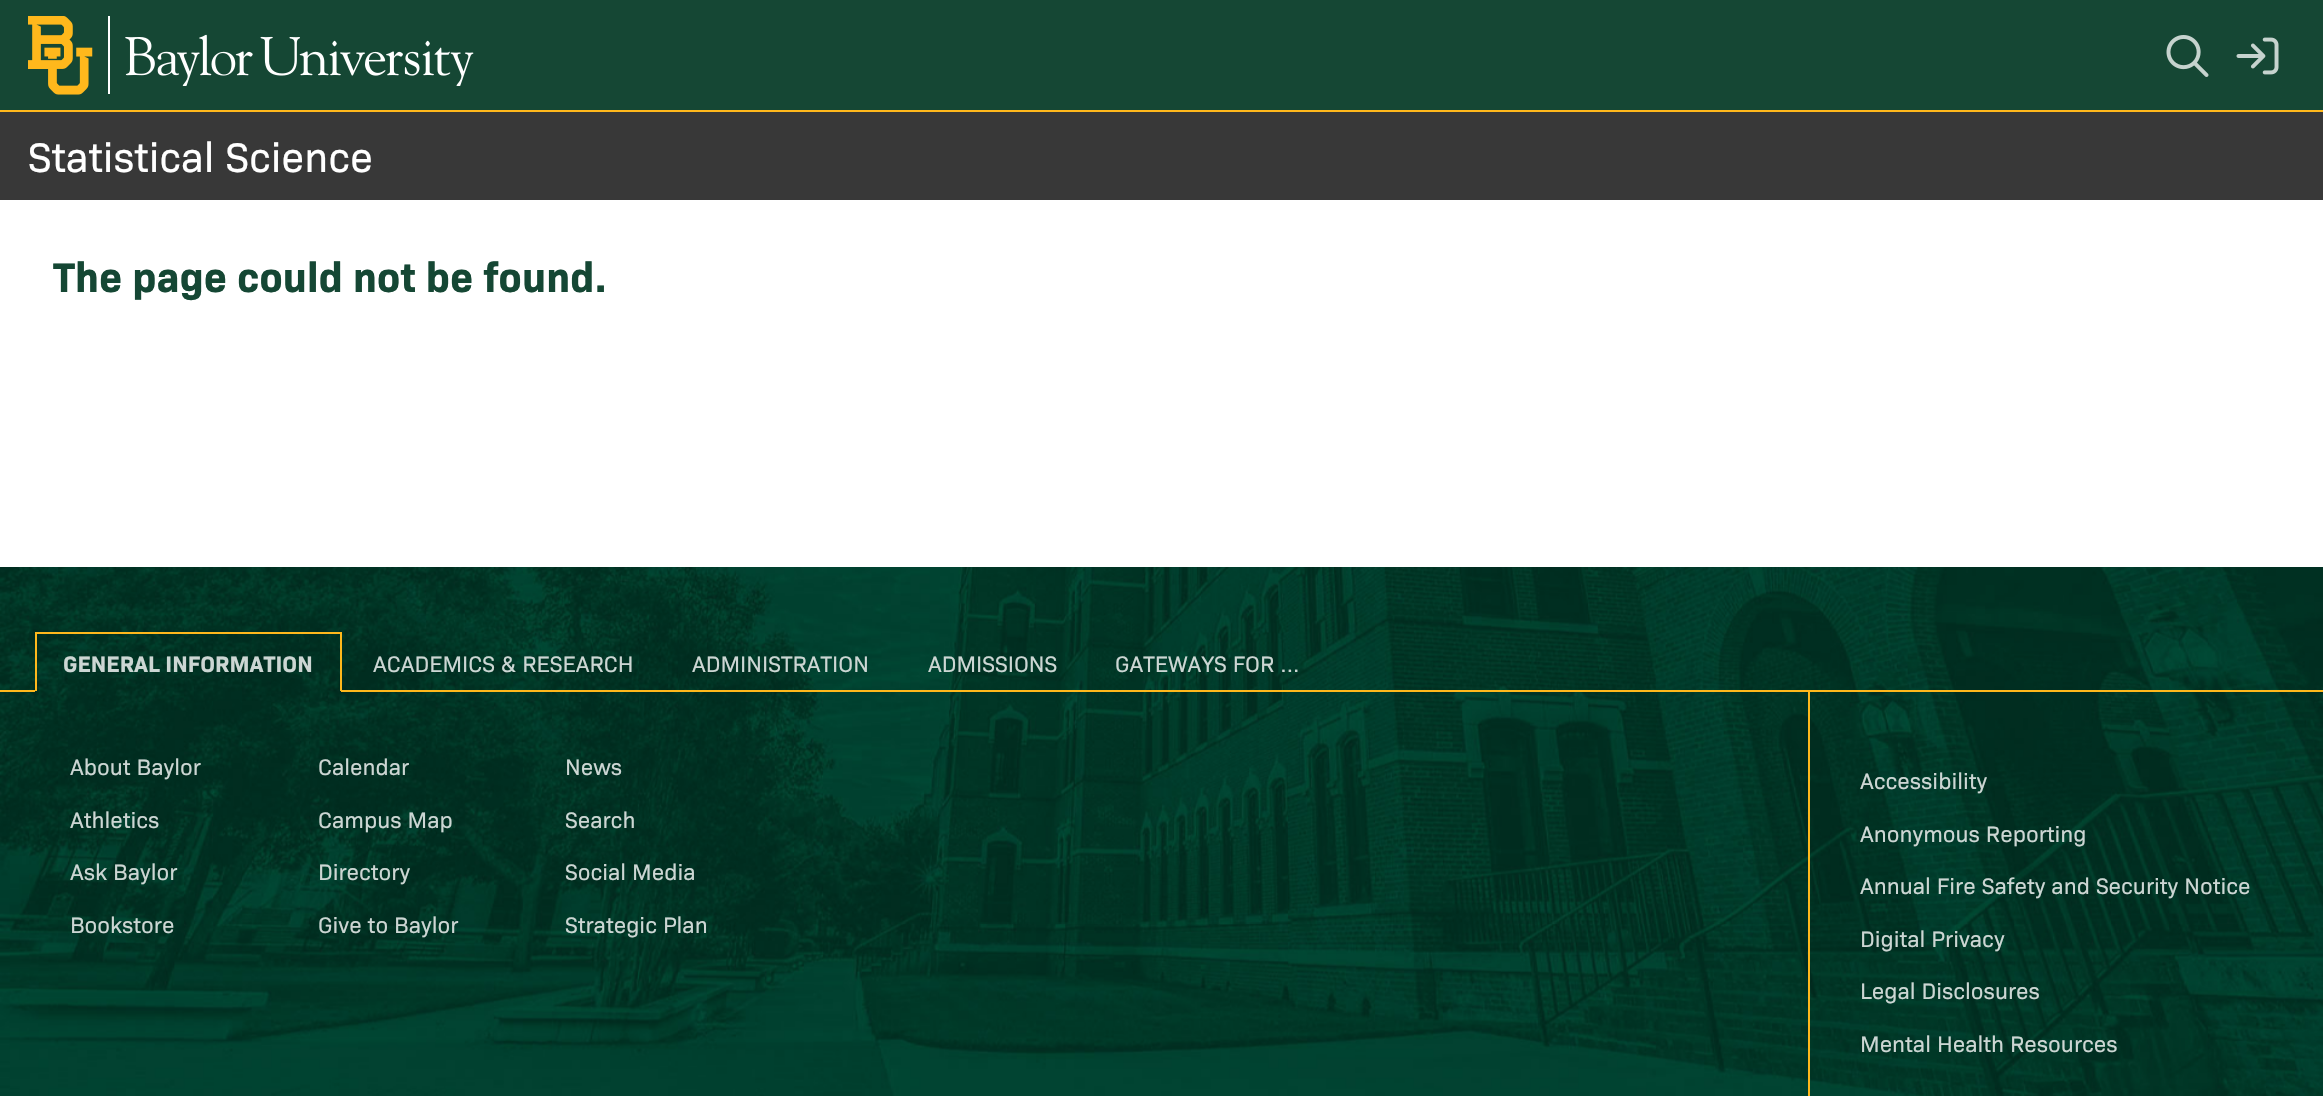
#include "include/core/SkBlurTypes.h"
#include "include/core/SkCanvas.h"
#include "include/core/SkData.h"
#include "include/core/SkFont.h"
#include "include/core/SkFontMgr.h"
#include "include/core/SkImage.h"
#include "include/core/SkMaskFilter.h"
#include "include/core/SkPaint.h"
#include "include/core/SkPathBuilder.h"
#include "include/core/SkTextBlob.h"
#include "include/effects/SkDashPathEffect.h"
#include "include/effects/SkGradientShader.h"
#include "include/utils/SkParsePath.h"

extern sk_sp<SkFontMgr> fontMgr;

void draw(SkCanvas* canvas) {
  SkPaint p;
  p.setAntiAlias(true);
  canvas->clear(SK_ColorWHITE);
  p.setColor(SkColorSetRGB(21, 71, 52));
  canvas->drawRect(SkRect::MakeLTRB(0, 0, 2323, 110), p);
  p.setColor(SkColorSetRGB(255, 184, 28));
  canvas->drawRect(SkRect::MakeLTRB(0, 110, 2323, 112), p);
  canvas->drawImageRect(SkImages::DeferredFromEncodedData(SkData::MakeFromFileName("images/1.png")), SkRect::MakeLTRB(28, 16, 474, 95), SkSamplingOptions());
  canvas->drawImageRect(SkImages::DeferredFromEncodedData(SkData::MakeFromFileName("images/2.png")), SkRect::MakeLTRB(2166, 35, 2209, 77), SkSamplingOptions());
  canvas->drawImageRect(SkImages::DeferredFromEncodedData(SkData::MakeFromFileName("images/3.png")), SkRect::MakeLTRB(2236, 37, 2279, 75), SkSamplingOptions());
  p.setColor(SkColorSetRGB(56, 56, 56));
  canvas->drawRect(SkRect::MakeLTRB(0, 112, 2323, 200), p);
  canvas->drawImageRect(SkImages::DeferredFromEncodedData(SkData::MakeFromFileName("images/4.png")), SkRect::MakeLTRB(0, 567, 2323, 1096), SkSamplingOptions());
  p.setColor(SkColorSetRGB(255, 184, 28));
  canvas->drawRect(SkRect::MakeLTRB(35, 632, 341, 634), p);
  canvas->drawRect(SkRect::MakeLTRB(340, 632, 342, 691), p);
  canvas->drawRect(SkRect::MakeLTRB(35, 632, 37, 691), p);
  canvas->drawRect(SkRect::MakeLTRB(0, 690, 35, 692), p);
  canvas->drawRect(SkRect::MakeLTRB(341, 690, 2323, 692), p);
  canvas->drawRect(SkRect::MakeLTRB(1808, 690, 1810, 1096), p);
  SkFont font1(fontMgr->matchFamilyStyle("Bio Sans", SkFontStyle::Normal()), 42);
  font1.setSubpixel(true);
  p.setColor(SK_ColorWHITE);
  canvas->drawString("Statistical Science", 28, 172, font1, p);
  SkFont font2(fontMgr->matchFamilyStyle("Bio Sans", SkFontStyle::Bold()), 42);
  font2.setSubpixel(true);
  p.setColor(SkColorSetRGB(21, 71, 52));
  canvas->drawString("The page could not be found.", 53, 292, font2, p);
  SkFont font3(fontMgr->matchFamilyStyle("Bio Sans", SkFontStyle::Bold()), 22.75f);
  font3.setSubpixel(true);
  p.setColor(SkColorSetRGB(204, 214, 211));
  canvas->drawString("GENERAL INFORMATION", 63, 672, font3, p);
  SkFont font4(fontMgr->matchFamilyStyle("Bio Sans", SkFontStyle::Normal()), 22.75f);
  font4.setSubpixel(true);
  canvas->drawString("ACADEMICS & RESEARCH", 373, 672, font4, p);
  canvas->drawString("ADMINISTRATION", 692, 672, font4, p);
  canvas->drawString("ADMISSIONS", 928, 672, font4, p);
  canvas->drawString("GATEWAYS FOR ...", 1115, 672, font4, p);
  canvas->drawString("About Baylor", 70, 775, font4, p);
  canvas->drawString("Calendar", 318, 775, font4, p);
  canvas->drawString("News", 565, 775, font4, p);
  canvas->drawString("Athletics", 70, 828, font4, p);
  canvas->drawString("Campus Map", 318, 828, font4, p);
  canvas->drawString("Search", 565, 828, font4, p);
  canvas->drawString("Ask Baylor", 70, 880, font4, p);
  canvas->drawString("Directory", 318, 880, font4, p);
  canvas->drawString("Social Media", 565, 880, font4, p);
  canvas->drawString("Bookstore", 70, 933, font4, p);
  canvas->drawString("Give to Baylor", 318, 933, font4, p);
  canvas->drawString("Strategic Plan", 565, 933, font4, p);
  canvas->drawString("Accessibility", 1860, 789, font4, p);
  canvas->drawString("Anonymous Reporting", 1860, 842, font4, p);
  canvas->drawString("Annual Fire Safety and Security Notice", 1860, 894, font4, p);
  canvas->drawString("Digital Privacy", 1860, 947, font4, p);
  canvas->drawString("Legal Disclosures", 1860, 999, font4, p);
  canvas->drawString("Mental Health Resources", 1860, 1052, font4, p);
}
